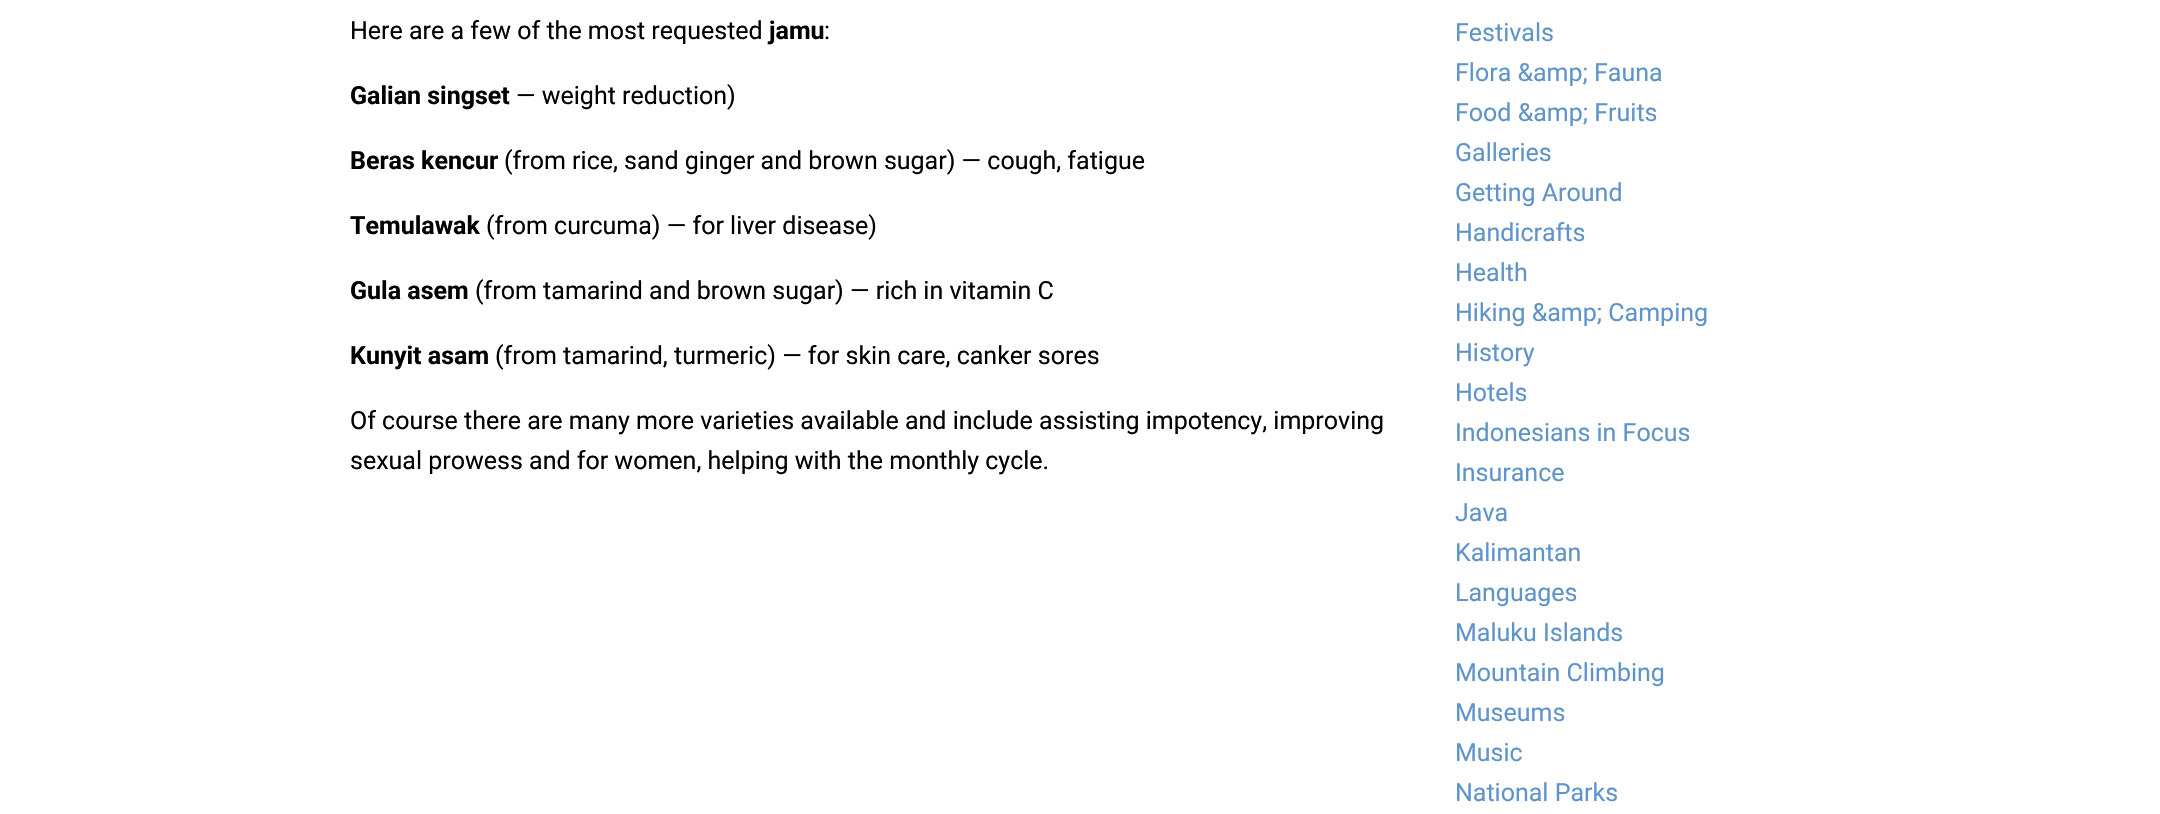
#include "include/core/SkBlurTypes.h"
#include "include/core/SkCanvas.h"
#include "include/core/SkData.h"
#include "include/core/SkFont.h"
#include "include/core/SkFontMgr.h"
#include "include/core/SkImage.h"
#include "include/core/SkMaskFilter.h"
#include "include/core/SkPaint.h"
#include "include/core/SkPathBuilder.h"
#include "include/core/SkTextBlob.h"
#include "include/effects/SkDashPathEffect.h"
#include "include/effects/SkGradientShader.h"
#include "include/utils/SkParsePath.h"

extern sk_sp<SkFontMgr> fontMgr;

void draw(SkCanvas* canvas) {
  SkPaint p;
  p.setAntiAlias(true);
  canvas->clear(SK_ColorWHITE);
  SkFont font1(fontMgr->matchFamilyStyle("Roboto", SkFontStyle::Normal()), 25);
  font1.setSubpixel(true);
  p.setColor(SK_ColorBLACK);
  canvas->drawString("Here are a few of the most requested", 350, 39, font1, p);
  SkFont font2(fontMgr->matchFamilyStyle("Roboto", SkFontStyle::Bold()), 25);
  font2.setSubpixel(true);
  canvas->drawString("jamu", 769, 39, font2, p);
  canvas->drawString(":", 824, 39, font1, p);
  canvas->drawString("Galian singset", 350, 104, font2, p);
  canvas->drawString("— weight reduction)", 516, 104, font1, p);
  canvas->drawString("Beras kencur", 350, 169, font2, p);
  canvas->drawString("(from rice, sand ginger and brown sugar) — cough, fatigue", 504, 169, font1, p);
  canvas->drawString("Temulawak", 350, 234, font2, p);
  canvas->drawString("(from curcuma) — for liver disease)", 486, 234, font1, p);
  canvas->drawString("Gula asem", 350, 299, font2, p);
  canvas->drawString("(from tamarind and brown sugar) — rich in vitamin C", 475, 299, font1, p);
  canvas->drawString("Kunyit asam", 350, 364, font2, p);
  canvas->drawString("(from tamarind, turmeric) — for skin care, canker sores", 495, 364, font1, p);
  canvas->drawString("Of course there are many more varieties available and include assisting impotency, improving", 350, 429, font1, p);
  canvas->drawString("sexual prowess and for women, helping with the monthly cycle.", 350, 469, font1, p);
  p.setColor(SkColorSetRGB(95, 148, 203));
  canvas->drawString("Festivals", 1455, 41, font1, p);
  canvas->drawString("Flora &amp; Fauna", 1455, 81, font1, p);
  canvas->drawString("Food &amp; Fruits", 1455, 121, font1, p);
  canvas->drawString("Galleries", 1455, 161, font1, p);
  canvas->drawString("Getting Around", 1455, 201, font1, p);
  canvas->drawString("Handicrafts", 1455, 241, font1, p);
  canvas->drawString("Health", 1455, 281, font1, p);
  canvas->drawString("Hiking &amp; Camping", 1455, 321, font1, p);
  canvas->drawString("History", 1455, 361, font1, p);
  canvas->drawString("Hotels", 1455, 401, font1, p);
  canvas->drawString("Indonesians in Focus", 1455, 441, font1, p);
  canvas->drawString("Insurance", 1455, 481, font1, p);
  canvas->drawString("Java", 1455, 521, font1, p);
  canvas->drawString("Kalimantan", 1455, 561, font1, p);
  canvas->drawString("Languages", 1455, 601, font1, p);
  canvas->drawString("Maluku Islands", 1455, 641, font1, p);
  canvas->drawString("Mountain Climbing", 1455, 681, font1, p);
  canvas->drawString("Museums", 1455, 721, font1, p);
  canvas->drawString("Music", 1455, 761, font1, p);
  canvas->drawString("National Parks", 1455, 801, font1, p);
}
